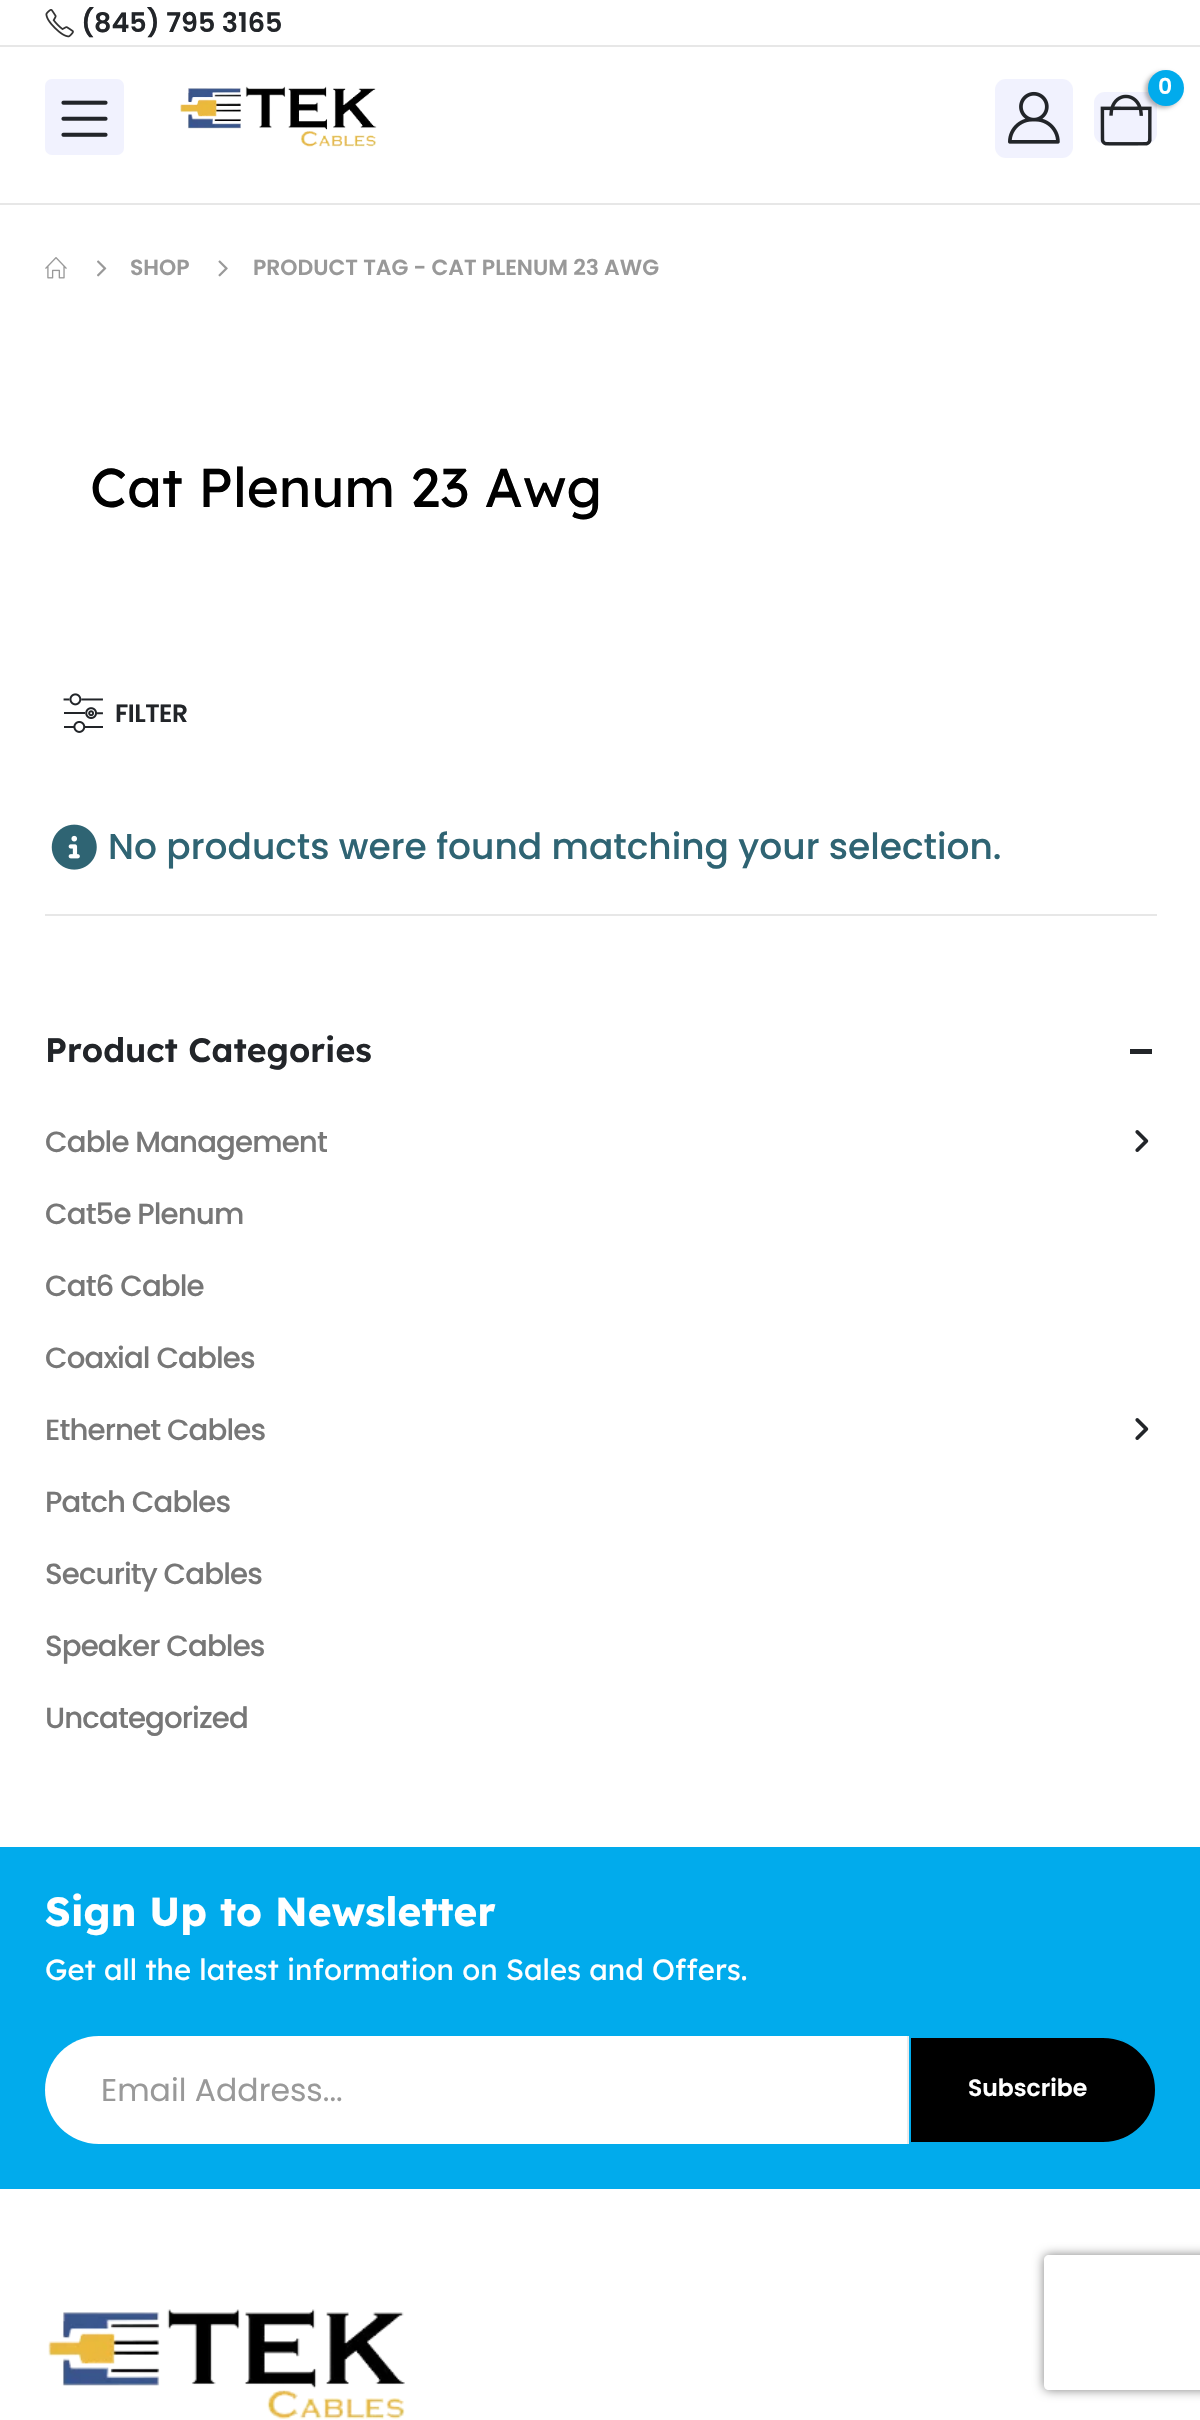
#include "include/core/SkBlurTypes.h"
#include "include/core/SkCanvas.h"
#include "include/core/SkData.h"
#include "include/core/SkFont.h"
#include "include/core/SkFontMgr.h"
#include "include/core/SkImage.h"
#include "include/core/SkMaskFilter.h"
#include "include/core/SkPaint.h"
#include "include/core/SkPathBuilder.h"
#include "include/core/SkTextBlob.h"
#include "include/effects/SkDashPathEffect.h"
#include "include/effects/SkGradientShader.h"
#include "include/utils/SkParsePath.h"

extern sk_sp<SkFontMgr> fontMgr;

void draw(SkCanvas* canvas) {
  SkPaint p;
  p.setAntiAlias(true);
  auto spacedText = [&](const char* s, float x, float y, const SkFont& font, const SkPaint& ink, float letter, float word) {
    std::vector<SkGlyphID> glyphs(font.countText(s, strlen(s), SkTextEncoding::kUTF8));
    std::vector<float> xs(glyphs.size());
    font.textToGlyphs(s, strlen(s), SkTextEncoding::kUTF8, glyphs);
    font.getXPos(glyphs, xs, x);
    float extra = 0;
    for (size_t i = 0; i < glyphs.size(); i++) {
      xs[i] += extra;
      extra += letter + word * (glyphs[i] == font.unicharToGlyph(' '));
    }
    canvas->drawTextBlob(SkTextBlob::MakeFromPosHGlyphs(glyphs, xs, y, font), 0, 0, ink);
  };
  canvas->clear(SK_ColorWHITE);
  p.setColor(SkColorSetRGB(231, 231, 231));
  canvas->drawRect(SkRect::MakeLTRB(0, 45, 1200, 47), p);
  canvas->drawImageRect(SkImages::DeferredFromEncodedData(SkData::MakeFromFileName("images/1.png")), SkRect::MakeLTRB(45, 9, 74, 38), SkSamplingOptions());
  p.setColor(SkColorSetRGB(241, 242, 254));
  canvas->drawRoundRect(SkRect::MakeLTRB(45, 79, 124, 155), 7, 7, p);
  canvas->drawImageRect(SkImages::DeferredFromEncodedData(SkData::MakeFromFileName("images/2.png")), SkRect::MakeLTRB(61, 100, 108, 137), SkSamplingOptions());
  canvas->drawImageRect(SkImages::DeferredFromEncodedData(SkData::MakeFromFileName("images/3.png")), SkRect::MakeLTRB(180, 86, 377, 147), SkSamplingOptions());
  canvas->drawRoundRect(SkRect::MakeLTRB(995, 79, 1073, 158), 11, 11, p);
  canvas->drawImageRect(SkImages::DeferredFromEncodedData(SkData::MakeFromFileName("images/4.png")), SkRect::MakeLTRB(1008, 91, 1060, 144), SkSamplingOptions());
  canvas->drawRoundRect(SkRect::MakeLTRB(1094, 92, 1157, 144), 11, 11, p);
  canvas->drawImageRect(SkImages::DeferredFromEncodedData(SkData::MakeFromFileName("images/5.png")), SkRect::MakeLTRB(1100, 94, 1152, 146), SkSamplingOptions());
  p.setColor(SkColorSetARGB(77, 0, 0, 0));
  p.setMaskFilter(SkMaskFilter::MakeBlur(kNormal_SkBlurStyle, 2));
  canvas->drawRoundRect(SkRect::MakeLTRB(1145, 72, 1181, 108), 18, 18, p);
  p.setMaskFilter(nullptr);
  p.setColor(SkColorSetRGB(1, 171, 236));
  canvas->drawCircle(1166, 88, 18, p);
  p.setColor(SkColorSetRGB(231, 231, 231));
  canvas->drawRect(SkRect::MakeLTRB(0, 203, 1200, 205), p);
  canvas->drawImageRect(SkImages::DeferredFromEncodedData(SkData::MakeFromFileName("images/6.png")), SkRect::MakeLTRB(45, 257, 67, 279), SkSamplingOptions());
  canvas->drawImageRect(SkImages::DeferredFromEncodedData(SkData::MakeFromFileName("images/7.png")), SkRect::MakeLTRB(97, 260, 107, 277), SkSamplingOptions());
  canvas->drawImageRect(SkImages::DeferredFromEncodedData(SkData::MakeFromFileName("images/8.png")), SkRect::MakeLTRB(218, 260, 228, 277), SkSamplingOptions());
  canvas->drawImageRect(SkImages::DeferredFromEncodedData(SkData::MakeFromFileName("images/9.png")), SkRect::MakeLTRB(63, 693, 103, 733), SkSamplingOptions());
  canvas->drawImageRect(SkImages::DeferredFromEncodedData(SkData::MakeFromFileName("images/10.png")), SkRect::MakeLTRB(51, 824, 97, 870), SkSamplingOptions());
  canvas->drawRect(SkRect::MakeLTRB(45, 914, 1157, 916), p);
  p.setColor(SkColorSetRGB(34, 37, 41));
  canvas->drawRect(SkRect::MakeLTRB(1130, 1049, 1152, 1054), p);
  canvas->drawImageRect(SkImages::DeferredFromEncodedData(SkData::MakeFromFileName("images/11.png")), SkRect::MakeLTRB(1135, 1130, 1149, 1152), SkSamplingOptions());
  canvas->drawImageRect(SkImages::DeferredFromEncodedData(SkData::MakeFromFileName("images/11.png")), SkRect::MakeLTRB(1135, 1418, 1149, 1440), SkSamplingOptions());
  p.setColor(SkColorSetRGB(1, 171, 236));
  canvas->drawRect(SkRect::MakeLTRB(0, 1847, 1200, 2189), p);
  p.setColor(SK_ColorWHITE);
  canvas->drawPath(SkPathBuilder().moveTo(99, 2036).lineTo(909, 2036).lineTo(909, 2144).lineTo(99, 2144).cubicTo(69, 2144, 45, 2120, 45, 2090).cubicTo(45, 2060, 69, 2036, 99, 2036).close().detach(), p);
  p.setColor(SkColorSetRGB(235, 235, 235));
  canvas->drawRect(SkRect::MakeLTRB(907, 2036, 909, 2144), p);
  p.setColor(SK_ColorBLACK);
  canvas->drawPath(SkPathBuilder().moveTo(910, 2037).lineTo(1103, 2037).cubicTo(1132.5f, 2037, 1156, 2060.5f, 1156, 2090).cubicTo(1156, 2119.5f, 1132.5f, 2143, 1103, 2143).lineTo(910, 2143).close().detach(), p);
  p.setStyle(SkPaint::kStroke_Style);
  p.setStrokeWidth(2);
  p.setColor(SkColorSetRGB(1, 171, 236));
  canvas->drawPath(SkPathBuilder().moveTo(910, 2037).lineTo(1103, 2037).cubicTo(1132.5f, 2037, 1156, 2060.5f, 1156, 2090).cubicTo(1156, 2119.5f, 1132.5f, 2143, 1103, 2143).lineTo(910, 2143).close().detach(), p);
  canvas->drawImageRect(SkImages::DeferredFromEncodedData(SkData::MakeFromFileName("images/12.png")), SkRect::MakeLTRB(48, 2309, 405, 2419), SkSamplingOptions());
  canvas->save();
  canvas->clipPath(SkPathBuilder(SkPathFillType::kEvenOdd).moveTo(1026, 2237).lineTo(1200, 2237).lineTo(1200, 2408).lineTo(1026, 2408).close().moveTo(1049, 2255).lineTo(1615, 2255).cubicTo(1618, 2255, 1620, 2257, 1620, 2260).lineTo(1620, 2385).cubicTo(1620, 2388, 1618, 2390, 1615, 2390).lineTo(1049, 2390).cubicTo(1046, 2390, 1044, 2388, 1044, 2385).lineTo(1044, 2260).cubicTo(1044, 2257, 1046, 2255, 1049, 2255).close().detach(), true);
  p.setStyle(SkPaint::kFill_Style);
  p.setColor(SkColorSetRGB(128, 128, 128));
  p.setMaskFilter(SkMaskFilter::MakeBlur(kNormal_SkBlurStyle, 5.5f));
  canvas->drawRoundRect(SkRect::MakeLTRB(1044, 2255, 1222, 2390), 5, 5, p);
  p.setMaskFilter(nullptr);
  canvas->restore();
  SkFont font1(fontMgr->matchFamilyStyle("Poppins", SkFontStyle(600, SkFontStyle::kNormal_Width, SkFontStyle::kUpright_Slant)), 27);
  font1.setSubpixel(true);
  p.setColor(SkColorSetRGB(34, 37, 41));
  canvas->drawString("(845) 795 3165", 81, 32, font1, p);
  SkFont font2(fontMgr->matchFamilyStyle("Poppins", SkFontStyle(600, SkFontStyle::kNormal_Width, SkFontStyle::kUpright_Slant)), 22);
  font2.setSubpixel(true);
  p.setColor(SK_ColorWHITE);
  canvas->drawString("0", 1158, 94, font2, p);
  SkFont font3(fontMgr->matchFamilyStyle("Poppins", SkFontStyle(600, SkFontStyle::kNormal_Width, SkFontStyle::kUpright_Slant)), 21.9f);
  font3.setSubpixel(true);
  p.setColor(SkColorSetRGB(153, 153, 153));
  canvas->drawString("SHOP", 130, 275, font3, p);
  canvas->drawString("PRODUCT TAG - CAT PLENUM 23 AWG", 253, 275, font3, p);
  SkFont font4(fontMgr->matchFamilyStyle("Lexend", SkFontStyle::Normal()), 54.75f);
  font4.setSubpixel(true);
  p.setColor(SK_ColorBLACK);
  canvas->drawString("Cat Plenum 23 Awg", 90, 507, font4, p);
  SkFont font5(fontMgr->matchFamilyStyle("Poppins", SkFontStyle(600, SkFontStyle::kNormal_Width, SkFontStyle::kUpright_Slant)), 25);
  font5.setSubpixel(true);
  p.setColor(SkColorSetRGB(34, 37, 41));
  spacedText("FILTER", 115, 722, font5, p, -0.5f, 0);
  SkFont font6(fontMgr->matchFamilyStyle("Poppins", SkFontStyle(500, SkFontStyle::kNormal_Width, SkFontStyle::kUpright_Slant)), 36);
  font6.setSubpixel(true);
  p.setColor(SkColorSetRGB(47, 100, 115));
  canvas->drawString("No products were found matching your selection.", 108, 859, font6, p);
  SkFont font7(fontMgr->matchFamilyStyle("Lexend", SkFontStyle(600, SkFontStyle::kNormal_Width, SkFontStyle::kUpright_Slant)), 33.75f);
  font7.setSubpixel(true);
  p.setColor(SkColorSetRGB(34, 37, 41));
  canvas->drawString("Product Categories", 45, 1062, font7, p);
  SkFont font8(fontMgr->matchFamilyStyle("Poppins", SkFontStyle(500, SkFontStyle::kNormal_Width, SkFontStyle::kUpright_Slant)), 29.25f);
  font8.setSubpixel(true);
  p.setColor(SkColorSetRGB(119, 119, 119));
  spacedText("Cable Management", 45, 1152, font8, p, -0.9f, 0);
  spacedText("Cat5e Plenum", 45, 1224, font8, p, -0.9f, 0);
  spacedText("Cat6 Cable", 45, 1296, font8, p, -0.9f, 0);
  spacedText("Coaxial Cables", 45, 1368, font8, p, -0.9f, 0);
  spacedText("Ethernet Cables", 45, 1440, font8, p, -0.9f, 0);
  spacedText("Patch Cables", 45, 1512, font8, p, -0.9f, 0);
  spacedText("Security Cables", 45, 1584, font8, p, -0.9f, 0);
  spacedText("Speaker Cables", 45, 1656, font8, p, -0.9f, 0);
  spacedText("Uncategorized", 45, 1728, font8, p, -0.9f, 0);
  SkFont font9(fontMgr->matchFamilyStyle("Lexend", SkFontStyle::Bold()), 40.5f);
  font9.setSubpixel(true);
  p.setColor(SK_ColorWHITE);
  canvas->drawString("Sign Up to Newsletter", 45, 1926, font9, p);
  SkFont font10(fontMgr->matchFamilyStyle("Lexend", SkFontStyle::Normal()), 29.25f);
  font10.setSubpixel(true);
  canvas->drawString("Get all the latest information on Sales and Offers.", 45, 1980, font10, p);
  SkFont font11(fontMgr->matchFamilyStyle("Poppins", SkFontStyle::Normal()), 31.5f);
  font11.setSubpixel(true);
  p.setColor(SkColorSetRGB(153, 153, 153));
  canvas->drawString("Email Address...", 101, 2101, font11, p);
  SkFont font12(fontMgr->matchFamilyStyle("Poppins", SkFontStyle(600, SkFontStyle::kNormal_Width, SkFontStyle::kUpright_Slant)), 23.5f);
  font12.setSubpixel(true);
  p.setColor(SK_ColorWHITE);
  canvas->drawString("Subscribe", 968, 2096, font12, p);
}
